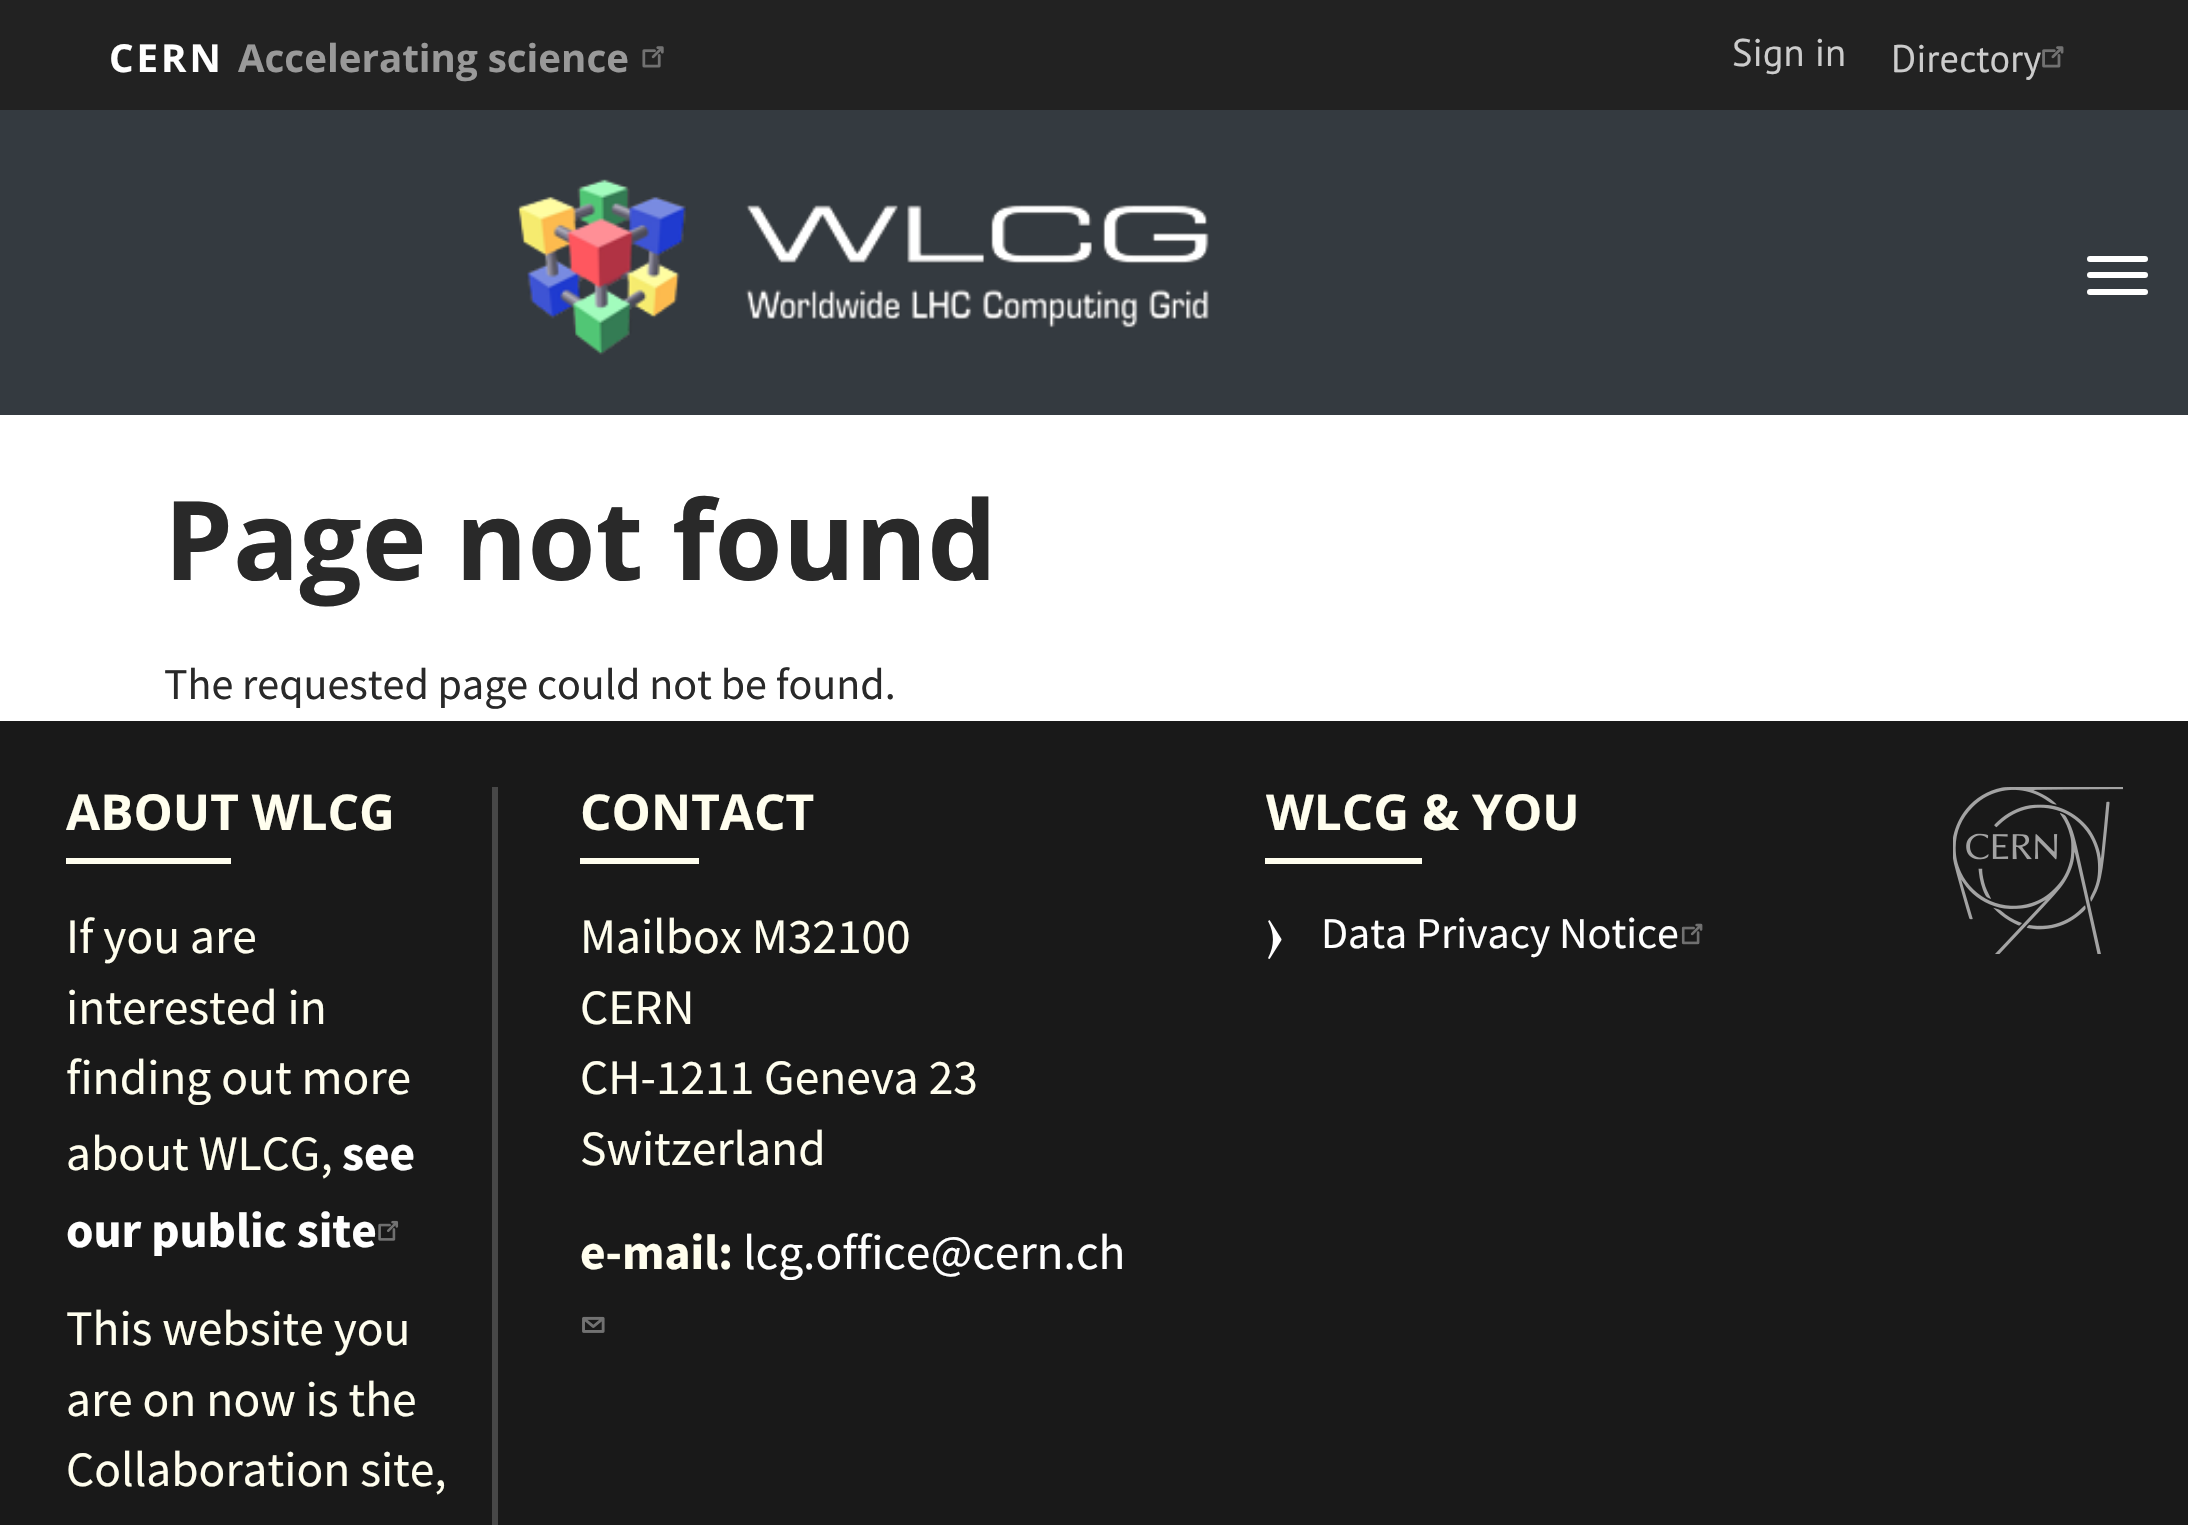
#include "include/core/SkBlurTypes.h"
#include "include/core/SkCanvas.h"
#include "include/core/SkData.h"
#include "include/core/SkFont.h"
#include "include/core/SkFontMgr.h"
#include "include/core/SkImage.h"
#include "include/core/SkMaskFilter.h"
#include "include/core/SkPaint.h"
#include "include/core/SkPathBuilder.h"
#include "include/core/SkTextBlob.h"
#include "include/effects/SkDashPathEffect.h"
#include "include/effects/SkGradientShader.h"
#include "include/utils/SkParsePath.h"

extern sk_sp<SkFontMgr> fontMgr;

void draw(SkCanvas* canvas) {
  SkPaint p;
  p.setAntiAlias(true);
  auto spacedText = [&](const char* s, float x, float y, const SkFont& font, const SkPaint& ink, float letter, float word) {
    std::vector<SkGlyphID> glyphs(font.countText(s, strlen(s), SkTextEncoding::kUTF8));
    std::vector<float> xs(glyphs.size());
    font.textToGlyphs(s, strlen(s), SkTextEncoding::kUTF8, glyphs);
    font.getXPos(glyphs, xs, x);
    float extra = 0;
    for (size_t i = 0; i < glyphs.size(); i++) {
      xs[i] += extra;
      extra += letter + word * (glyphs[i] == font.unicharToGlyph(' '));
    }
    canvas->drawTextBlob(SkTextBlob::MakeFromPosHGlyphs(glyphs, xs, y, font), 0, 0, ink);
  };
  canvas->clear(SK_ColorWHITE);
  p.setColor(SkColorSetRGB(34, 34, 34));
  canvas->drawRect(SkRect::MakeLTRB(0, 0, 2188, 110), p);
  canvas->drawImageRect(SkImages::DeferredFromEncodedData(SkData::MakeFromFileName("images/1.png")), SkRect::MakeLTRB(642, 46, 664, 68), SkSamplingOptions());
  canvas->drawImageRect(SkImages::DeferredFromEncodedData(SkData::MakeFromFileName("images/2.png")), SkRect::MakeLTRB(2042, 46, 2064, 68), SkSamplingOptions());
  p.setColor(SkColorSetRGB(52, 58, 64));
  canvas->drawRect(SkRect::MakeLTRB(0, 110, 2188, 415), p);
  canvas->drawImageRect(SkImages::DeferredFromEncodedData(SkData::MakeFromFileName("images/3.png")), SkRect::MakeLTRB(517, 179, 1209, 355), SkSamplingOptions());
  p.setColor(SK_ColorWHITE);
  canvas->drawRoundRect(SkRect::MakeLTRB(2087, 256, 2148, 262), 3, 3, p);
  canvas->drawRoundRect(SkRect::MakeLTRB(2087, 272, 2148, 278), 3, 3, p);
  canvas->drawRoundRect(SkRect::MakeLTRB(2087, 289, 2148, 295), 3, 3, p);
  p.setColor(SkColorSetRGB(25, 25, 25));
  canvas->drawRect(SkRect::MakeLTRB(0, 721, 2188, 1525), p);
  p.setColor(SkColorSetRGB(255, 254, 238));
  canvas->drawRect(SkRect::MakeLTRB(66, 858, 231, 864), p);
  canvas->drawImageRect(SkImages::DeferredFromEncodedData(SkData::MakeFromFileName("images/4.png")), SkRect::MakeLTRB(378, 1220, 399, 1241), SkSamplingOptions());
  p.setColor(SkColorSetRGB(71, 71, 71));
  canvas->drawRect(SkRect::MakeLTRB(492, 787, 498, 1525), p);
  p.setColor(SkColorSetRGB(255, 254, 238));
  canvas->drawRect(SkRect::MakeLTRB(580, 858, 699, 864), p);
  canvas->drawImageRect(SkImages::DeferredFromEncodedData(SkData::MakeFromFileName("images/5.png")), SkRect::MakeLTRB(582, 1316, 605, 1333), SkSamplingOptions());
  canvas->drawRect(SkRect::MakeLTRB(1265, 858, 1422, 864), p);
  canvas->drawImageRect(SkImages::DeferredFromEncodedData(SkData::MakeFromFileName("images/6.png")), SkRect::MakeLTRB(1268, 920, 1282, 959), SkSamplingOptions());
  canvas->drawImageRect(SkImages::DeferredFromEncodedData(SkData::MakeFromFileName("images/7.png")), SkRect::MakeLTRB(1681, 923, 1703, 945), SkSamplingOptions());
  canvas->drawImageRect(SkImages::DeferredFromEncodedData(SkData::MakeFromFileName("images/8.png")), SkRect::MakeLTRB(1953, 787, 2123, 954), SkSamplingOptions());
  SkFont font1(fontMgr->matchFamilyStyle("Open Sans", SkFontStyle::Bold()), 38.5f);
  font1.setSubpixel(true);
  p.setColor(SK_ColorWHITE);
  spacedText("CERN", 109, 72, font1, p, 3, 0);
  p.setColor(SkColorSetRGB(153, 153, 153));
  canvas->drawString("Accelerating science", 238, 72, font1, p);
  SkFont font2(fontMgr->matchFamilyStyle("PT Sans", SkFontStyle::Normal()), 38.5f);
  font2.setSubpixel(true);
  p.setColor(SkColorSetRGB(204, 204, 204));
  canvas->drawString("Sign in", 1732, 66, font2, p);
  canvas->drawString("Directory", 1891, 72, font2, p);
  SkFont font3(fontMgr->matchFamilyStyle("Open Sans", SkFontStyle::Bold()), 110);
  font3.setSubpixel(true);
  p.setColor(SkColorSetRGB(41, 41, 41));
  canvas->drawString("Page not found", 164, 580, font3, p);
  SkFont font4(fontMgr->matchFamilyStyle("Source Sans Pro", SkFontStyle::Normal()), 44);
  font4.setSubpixel(true);
  canvas->drawString("The requested page could not be found.", 164, 699, font4, p);
  SkFont font5(fontMgr->matchFamilyStyle("Open Sans", SkFontStyle::Bold()), 49.5f);
  font5.setSubpixel(true);
  p.setColor(SkColorSetRGB(255, 254, 238));
  canvas->drawString("ABOUT WLCG", 66, 830, font5, p);
  SkFont font6(fontMgr->matchFamilyStyle("Source Sans Pro", SkFontStyle::Normal()), 49.5f);
  font6.setSubpixel(true);
  canvas->drawString("If you are", 66, 953, font6, p);
  canvas->drawString("interested in", 66, 1024, font6, p);
  canvas->drawString("finding out more", 66, 1094, font6, p);
  canvas->drawString("about WLCG,", 66, 1170, font6, p);
  SkFont font7(fontMgr->matchFamilyStyle("Source Sans Pro", SkFontStyle::Bold()), 49.5f);
  font7.setSubpixel(true);
  p.setColor(SK_ColorWHITE);
  canvas->drawString("see", 342, 1170, font7, p);
  canvas->drawString("our public site", 66, 1247, font7, p);
  p.setColor(SkColorSetRGB(255, 254, 238));
  canvas->drawString("This website you", 66, 1345, font6, p);
  canvas->drawString("are on now is the", 66, 1416, font6, p);
  canvas->drawString("Collaboration site,", 66, 1486, font6, p);
  canvas->drawString("CONTACT", 580, 830, font5, p);
  canvas->drawString("Mailbox M32100", 580, 953, font6, p);
  canvas->drawString("CERN", 580, 1024, font6, p);
  canvas->drawString("CH-1211 Geneva 23", 580, 1094, font6, p);
  canvas->drawString("Switzerland", 580, 1165, font6, p);
  canvas->drawString("e-mail:", 580, 1269, font7, p);
  p.setColor(SK_ColorWHITE);
  canvas->drawString("lcg.office@cern.ch", 743, 1269, font6, p);
  p.setColor(SkColorSetRGB(255, 254, 238));
  canvas->drawString("WLCG & YOU", 1266, 830, font5, p);
  p.setColor(SK_ColorWHITE);
  canvas->drawString("Data Privacy Notice", 1321, 948, font4, p);
}
